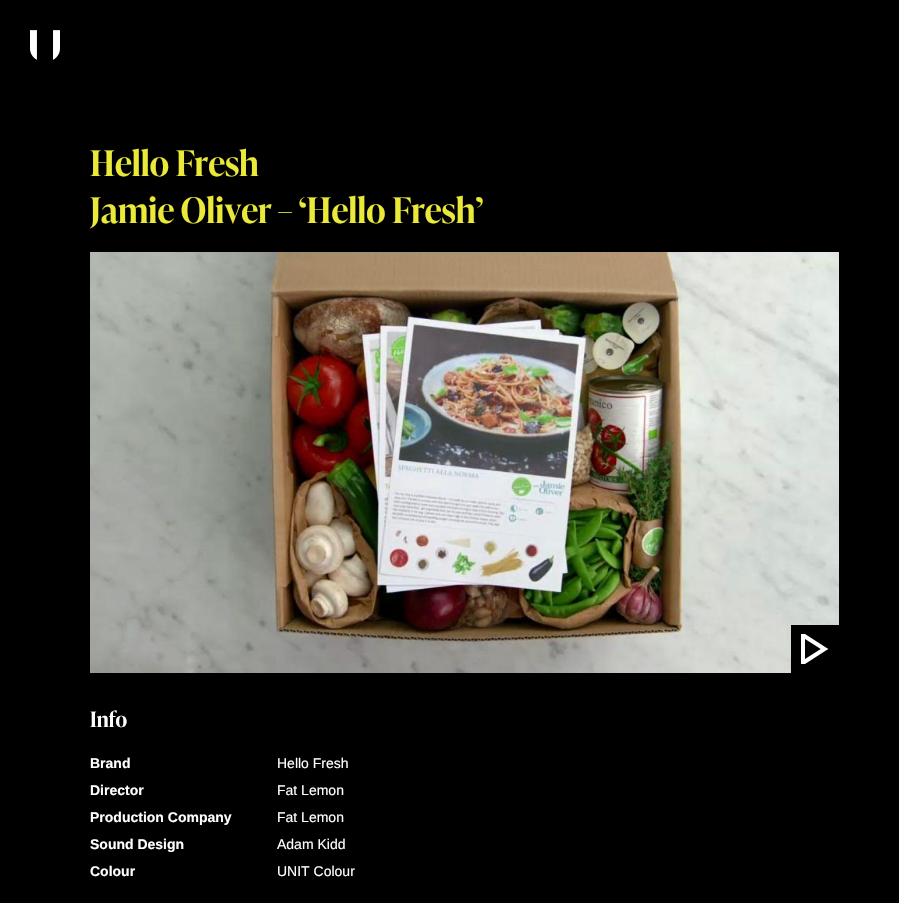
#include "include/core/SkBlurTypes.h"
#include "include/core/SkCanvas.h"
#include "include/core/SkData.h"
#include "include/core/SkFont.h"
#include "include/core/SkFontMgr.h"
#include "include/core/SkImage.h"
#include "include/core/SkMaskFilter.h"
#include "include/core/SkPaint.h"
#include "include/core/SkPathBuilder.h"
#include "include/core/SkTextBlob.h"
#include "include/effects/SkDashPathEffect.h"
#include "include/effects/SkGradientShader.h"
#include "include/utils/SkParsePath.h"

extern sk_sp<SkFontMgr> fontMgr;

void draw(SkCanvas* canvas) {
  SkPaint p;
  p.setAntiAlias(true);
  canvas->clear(SK_ColorBLACK);
  canvas->drawImageRect(SkImages::DeferredFromEncodedData(SkData::MakeFromFileName("images/1.png")), SkRect::MakeLTRB(30, 30, 60, 60), SkSamplingOptions());
  canvas->drawImageRect(SkImages::DeferredFromEncodedData(SkData::MakeFromFileName("images/2.png")), SkRect::MakeLTRB(90, 252, 839, 673), SkSamplingOptions());
  p.setColor(SK_ColorBLACK);
  canvas->drawRect(SkRect::MakeLTRB(791, 625, 839, 673), p);
  canvas->drawImageRect(SkImages::DeferredFromEncodedData(SkData::MakeFromFileName("images/3.png")), SkRect::MakeLTRB(801, 634, 829, 664), SkSamplingOptions());
  SkFont font1(fontMgr->matchFamilyStyle("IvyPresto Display", SkFontStyle(600, SkFontStyle::kNormal_Width, SkFontStyle::kUpright_Slant)), 35);
  font1.setSubpixel(true);
  p.setColor(SkColorSetRGB(234, 233, 58));
  canvas->drawString("Hello Fresh", 90, 176, font1, p);
  canvas->drawString("Jamie Oliver – ‘Hello Fresh’", 90, 223, font1, p);
  SkFont font2(fontMgr->matchFamilyStyle("IvyPresto Display", SkFontStyle(600, SkFontStyle::kNormal_Width, SkFontStyle::kUpright_Slant)), 21);
  font2.setSubpixel(true);
  p.setColor(SK_ColorWHITE);
  canvas->drawString("Info", 90, 727, font2, p);
  SkFont font3(fontMgr->matchFamilyStyle("Liberation Sans", SkFontStyle::Bold()), 14);
  font3.setSubpixel(true);
  canvas->drawString("Brand", 90, 768, font3, p);
  SkFont font4(fontMgr->matchFamilyStyle("Liberation Sans", SkFontStyle::Normal()), 14);
  font4.setSubpixel(true);
  canvas->drawString("Hello Fresh", 277, 768, font4, p);
  canvas->drawString("Director", 90, 795, font3, p);
  canvas->drawString("Fat Lemon", 277, 795, font4, p);
  canvas->drawString("Production Company", 90, 822, font3, p);
  canvas->drawString("Fat Lemon", 277, 822, font4, p);
  canvas->drawString("Sound Design", 90, 849, font3, p);
  canvas->drawString("Adam Kidd", 277, 849, font4, p);
  canvas->drawString("Colour", 90, 876, font3, p);
  canvas->drawString("UNIT Colour", 277, 876, font4, p);
}
